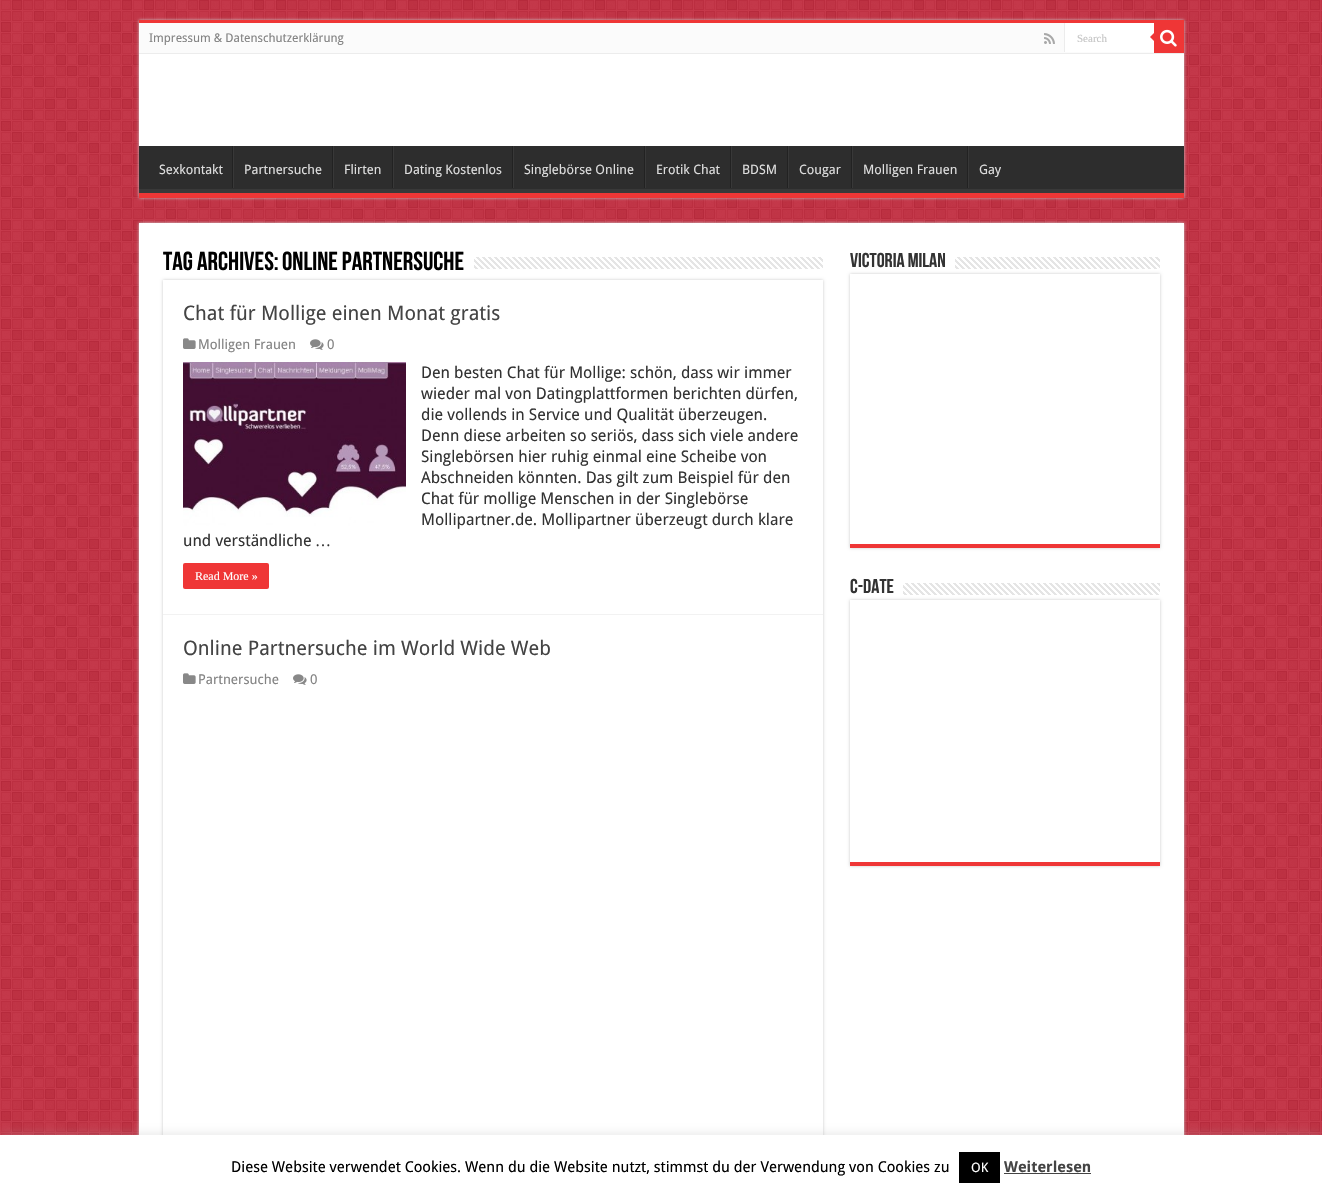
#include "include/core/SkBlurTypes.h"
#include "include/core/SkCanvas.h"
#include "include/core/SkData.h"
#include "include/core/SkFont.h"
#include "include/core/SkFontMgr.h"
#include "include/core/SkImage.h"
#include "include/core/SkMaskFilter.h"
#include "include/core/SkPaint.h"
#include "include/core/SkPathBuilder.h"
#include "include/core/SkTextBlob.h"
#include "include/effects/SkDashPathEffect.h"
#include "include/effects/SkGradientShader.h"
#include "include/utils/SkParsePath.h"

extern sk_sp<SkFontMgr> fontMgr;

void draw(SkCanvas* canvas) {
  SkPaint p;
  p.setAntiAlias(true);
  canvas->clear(SkColorSetRGB(184, 4, 28));
  canvas->drawImageRect(SkImages::DeferredFromEncodedData(SkData::MakeFromFileName("images/1.png")), SkRect::MakeLTRB(0, 0, 1322, 1135), SkSamplingOptions());
  p.setColor(SkColorSetRGB(202, 202, 202));
  p.setMaskFilter(SkMaskFilter::MakeBlur(kNormal_SkBlurStyle, 1.5f));
  canvas->drawRect(SkRect::MakeLTRB(139, 20, 1184, 198), p);
  p.setMaskFilter(nullptr);
  p.setColor(SK_ColorWHITE);
  canvas->drawRect(SkRect::MakeLTRB(139, 54, 1184, 146), p);
  p.setColor(SkColorSetRGB(239, 54, 54));
  canvas->drawRect(SkRect::MakeLTRB(139, 20, 1184, 23), p);
  p.setColor(SkColorSetRGB(251, 251, 251));
  canvas->drawRect(SkRect::MakeLTRB(139, 23, 1154, 53), p);
  p.setColor(SkColorSetRGB(236, 236, 236));
  canvas->drawRect(SkRect::MakeLTRB(139, 53, 1184, 54), p);
  canvas->drawImageRect(SkImages::DeferredFromEncodedData(SkData::MakeFromFileName("images/2.png")), SkRect::MakeLTRB(1044, 33, 1055, 44), SkSamplingOptions());
  p.setColor(SK_ColorWHITE);
  canvas->drawRect(SkRect::MakeLTRB(1065, 23, 1154, 52), p);
  p.setColor(SkColorSetRGB(236, 236, 236));
  canvas->drawRect(SkRect::MakeLTRB(1064, 23, 1065, 52), p);
  p.setColor(SkColorSetRGB(239, 54, 54));
  canvas->drawRect(SkRect::MakeLTRB(1154, 23, 1184, 53), p);
  canvas->drawImageRect(SkImages::DeferredFromEncodedData(SkData::MakeFromFileName("images/3.png")), SkRect::MakeLTRB(1160, 29, 1177, 47), SkSamplingOptions());
  canvas->drawPath(SkPathBuilder().moveTo(1154, 33).lineTo(1154, 41).lineTo(1150, 37).close().detach(), p);
  p.setColor(SkColorSetRGB(45, 45, 45));
  canvas->drawRect(SkRect::MakeLTRB(139, 146, 1184, 189), p);
  canvas->save();
  canvas->clipRect(SkRect::MakeLTRB(139, 146, 1184, 193));
  p.setColor(SkColorSetRGB(57, 57, 57));
  canvas->drawPath(SkPathBuilder(SkPathFillType::kEvenOdd).moveTo(40, 47).lineTo(1283, 47).lineTo(1283, 292).lineTo(40, 292).close().moveTo(138, 140).lineTo(1184, 140).lineTo(1184, 180).cubicTo(1184, 181, 1185, 189, 1183, 189).lineTo(138, 189).lineTo(137, 188).lineTo(137, 140).close().detach(), p);
  canvas->restore();
  p.setColor(SkColorSetRGB(239, 54, 54));
  canvas->drawRect(SkRect::MakeLTRB(139, 193, 1184, 198), p);
  p.setColor(SkColorSetRGB(34, 34, 34));
  canvas->drawRect(SkRect::MakeLTRB(232, 146, 233, 188), p);
  p.setColor(SkColorSetRGB(56, 56, 56));
  canvas->drawRect(SkRect::MakeLTRB(233, 146, 234, 188), p);
  p.setColor(SkColorSetRGB(34, 34, 34));
  canvas->drawRect(SkRect::MakeLTRB(332, 146, 333, 188), p);
  p.setColor(SkColorSetRGB(56, 56, 56));
  canvas->drawRect(SkRect::MakeLTRB(333, 146, 334, 188), p);
  p.setColor(SkColorSetRGB(34, 34, 34));
  canvas->drawRect(SkRect::MakeLTRB(392, 146, 393, 188), p);
  p.setColor(SkColorSetRGB(56, 56, 56));
  canvas->drawRect(SkRect::MakeLTRB(393, 146, 394, 188), p);
  p.setColor(SkColorSetRGB(34, 34, 34));
  canvas->drawRect(SkRect::MakeLTRB(512, 146, 513, 188), p);
  p.setColor(SkColorSetRGB(56, 56, 56));
  canvas->drawRect(SkRect::MakeLTRB(513, 146, 514, 188), p);
  p.setColor(SkColorSetRGB(34, 34, 34));
  canvas->drawRect(SkRect::MakeLTRB(644, 146, 645, 188), p);
  p.setColor(SkColorSetRGB(56, 56, 56));
  canvas->drawRect(SkRect::MakeLTRB(645, 146, 646, 188), p);
  p.setColor(SkColorSetRGB(34, 34, 34));
  canvas->drawRect(SkRect::MakeLTRB(730, 146, 731, 188), p);
  p.setColor(SkColorSetRGB(56, 56, 56));
  canvas->drawRect(SkRect::MakeLTRB(731, 146, 732, 188), p);
  p.setColor(SkColorSetRGB(34, 34, 34));
  canvas->drawRect(SkRect::MakeLTRB(787, 146, 788, 188), p);
  p.setColor(SkColorSetRGB(56, 56, 56));
  canvas->drawRect(SkRect::MakeLTRB(788, 146, 789, 188), p);
  p.setColor(SkColorSetRGB(34, 34, 34));
  canvas->drawRect(SkRect::MakeLTRB(851, 146, 852, 188), p);
  p.setColor(SkColorSetRGB(56, 56, 56));
  canvas->drawRect(SkRect::MakeLTRB(852, 146, 853, 188), p);
  p.setColor(SkColorSetRGB(34, 34, 34));
  canvas->drawRect(SkRect::MakeLTRB(967, 146, 968, 188), p);
  p.setColor(SkColorSetRGB(56, 56, 56));
  canvas->drawRect(SkRect::MakeLTRB(968, 146, 969, 188), p);
  p.setColor(SkColorSetRGB(202, 202, 202));
  p.setMaskFilter(SkMaskFilter::MakeBlur(kNormal_SkBlurStyle, 1.5f));
  canvas->drawRect(SkRect::MakeLTRB(139, 223, 1184, 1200), p);
  p.setMaskFilter(nullptr);
  p.setColor(SK_ColorWHITE);
  canvas->drawRect(SkRect::MakeLTRB(139, 223, 1184, 1135), p);
  canvas->drawImageRect(SkImages::DeferredFromEncodedData(SkData::MakeFromFileName("images/4.png")), SkRect::MakeLTRB(474, 257, 823, 269), SkSamplingOptions());
  canvas->save();
  canvas->clipPath(SkPathBuilder(SkPathFillType::kEvenOdd).moveTo(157, 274).lineTo(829, 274).lineTo(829, 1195).lineTo(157, 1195).close().moveTo(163, 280).lineTo(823, 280).lineTo(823, 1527).lineTo(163, 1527).close().detach(), true);
  p.setColor(SkColorSetRGB(202, 202, 202));
  p.setMaskFilter(SkMaskFilter::MakeBlur(kNormal_SkBlurStyle, 1.5f));
  canvas->drawRect(SkRect::MakeLTRB(163, 280, 823, 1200), p);
  p.setMaskFilter(nullptr);
  canvas->restore();
  p.setColor(SkColorSetRGB(242, 242, 242));
  canvas->drawRect(SkRect::MakeLTRB(163, 614, 823, 615), p);
  canvas->drawImageRect(SkImages::DeferredFromEncodedData(SkData::MakeFromFileName("images/5.png")), SkRect::MakeLTRB(183, 338, 196, 349), SkSamplingOptions());
  canvas->drawImageRect(SkImages::DeferredFromEncodedData(SkData::MakeFromFileName("images/6.png")), SkRect::MakeLTRB(310, 339, 324, 350), SkSamplingOptions());
  canvas->drawImageRect(SkImages::DeferredFromEncodedData(SkData::MakeFromFileName("images/7.png")), SkRect::MakeLTRB(183, 362, 406, 526), SkSamplingOptions());
  p.setColor(SkColorSetRGB(239, 54, 54));
  canvas->drawRoundRect(SkRect::MakeLTRB(183, 563, 269, 589), 2, 2, p);
  canvas->drawImageRect(SkImages::DeferredFromEncodedData(SkData::MakeFromFileName("images/5.png")), SkRect::MakeLTRB(183, 673, 196, 684), SkSamplingOptions());
  canvas->drawImageRect(SkImages::DeferredFromEncodedData(SkData::MakeFromFileName("images/6.png")), SkRect::MakeLTRB(293, 674, 307, 685), SkSamplingOptions());
  canvas->save();
  canvas->clipPath(SkPathBuilder(SkPathFillType::kEvenOdd).moveTo(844, 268).lineTo(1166, 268).lineTo(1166, 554).lineTo(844, 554).close().moveTo(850, 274).lineTo(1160, 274).lineTo(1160, 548).lineTo(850, 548).close().detach(), true);
  p.setColor(SkColorSetRGB(202, 202, 202));
  p.setMaskFilter(SkMaskFilter::MakeBlur(kNormal_SkBlurStyle, 1.5f));
  canvas->drawRect(SkRect::MakeLTRB(850, 274, 1160, 548), p);
  p.setMaskFilter(nullptr);
  canvas->restore();
  canvas->drawImageRect(SkImages::DeferredFromEncodedData(SkData::MakeFromFileName("images/8.png")), SkRect::MakeLTRB(955, 257, 1160, 269), SkSamplingOptions());
  p.setColor(SkColorSetRGB(239, 54, 54));
  canvas->drawRect(SkRect::MakeLTRB(850, 544, 1160, 548), p);
  canvas->save();
  canvas->clipPath(SkPathBuilder(SkPathFillType::kEvenOdd).moveTo(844, 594).lineTo(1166, 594).lineTo(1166, 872).lineTo(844, 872).close().moveTo(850, 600).lineTo(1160, 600).lineTo(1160, 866).lineTo(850, 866).close().detach(), true);
  p.setColor(SkColorSetRGB(202, 202, 202));
  p.setMaskFilter(SkMaskFilter::MakeBlur(kNormal_SkBlurStyle, 1.5f));
  canvas->drawRect(SkRect::MakeLTRB(850, 600, 1160, 866), p);
  p.setMaskFilter(nullptr);
  canvas->restore();
  canvas->drawImageRect(SkImages::DeferredFromEncodedData(SkData::MakeFromFileName("images/9.png")), SkRect::MakeLTRB(903, 583, 1160, 595), SkSamplingOptions());
  p.setColor(SkColorSetRGB(239, 54, 54));
  canvas->drawRect(SkRect::MakeLTRB(850, 862, 1160, 866), p);
  p.setColor(SkColorSetARGB(77, 172, 171, 171));
  p.setMaskFilter(SkMaskFilter::MakeBlur(kNormal_SkBlurStyle, 5));
  canvas->drawRect(SkRect::MakeLTRB(0, 1134, 1322, 1194), p);
  p.setMaskFilter(nullptr);
  p.setColor(SK_ColorWHITE);
  canvas->drawRect(SkRect::MakeLTRB(0, 1135, 1322, 1195), p);
  p.setColor(SK_ColorBLACK);
  canvas->drawRect(SkRect::MakeLTRB(959, 1152, 1000, 1183), p);
  p.setColor(SkColorSetRGB(68, 68, 68));
  canvas->drawRect(SkRect::MakeLTRB(1004, 1173, 1091, 1174), p);
  SkFont font1(fontMgr->matchFamilyStyle("Droid Sans", SkFontStyle::Normal()), 12);
  font1.setSubpixel(true);
  p.setColor(SkColorSetRGB(131, 131, 131));
  canvas->drawString("Impressum & Datenschutzerklärung", 149, 42, font1, p);
  SkFont font2(fontMgr->matchFamilyStyle("Liberation Serif", SkFontStyle::Normal()), 11);
  font2.setSubpixel(true);
  p.setColor(SkColorSetRGB(197, 197, 197));
  canvas->drawString("Search", 1077, 42, font2, p);
  SkFont font3(fontMgr->matchFamilyStyle("Droid Sans", SkFontStyle::Normal()), 13);
  font3.setSubpixel(true);
  p.setColor(SkColorSetRGB(221, 221, 221));
  canvas->drawString("Sexkontakt", 159, 174, font3, p);
  canvas->drawString("Partnersuche", 244, 174, font3, p);
  canvas->drawString("Flirten", 344, 174, font3, p);
  canvas->drawString("Dating Kostenlos", 404, 174, font3, p);
  canvas->drawString("Singlebörse Online", 524, 174, font3, p);
  canvas->drawString("Erotik Chat", 656, 174, font3, p);
  canvas->drawString("BDSM", 742, 174, font3, p);
  canvas->drawString("Cougar", 799, 174, font3, p);
  canvas->drawString("Molligen Frauen", 863, 174, font3, p);
  canvas->drawString("Gay", 979, 174, font3, p);
  canvas->save();
  canvas->clipRect(SkRect::MakeLTRB(163, 247, 823, 280));
  SkFont font4(fontMgr->matchFamilyStyle("Bebas Neue", SkFontStyle::Bold()), 26);
  font4.setSubpixel(true);
  p.setColor(SK_ColorBLACK);
  canvas->drawString("Tag Archives:", 163, 270, font4, p);
  canvas->restore();
  canvas->drawString("Online Partnersuche", 282, 270, font4, p);
  SkFont font5(fontMgr->matchFamilyStyle("Droid Sans", SkFontStyle::Normal()), 20);
  font5.setSubpixel(true);
  p.setColor(SkColorSetRGB(68, 68, 68));
  canvas->drawString("Chat für Mollige einen Monat gratis", 183, 320, font5, p);
  SkFont font6(fontMgr->matchFamilyStyle("Droid Sans", SkFontStyle::Normal()), 13.5f);
  font6.setSubpixel(true);
  p.setColor(SkColorSetRGB(131, 131, 131));
  canvas->drawString("Molligen Frauen", 198, 349, font6, p);
  canvas->drawString("0", 327, 349, font6, p);
  SkFont font7(fontMgr->matchFamilyStyle("Droid Sans", SkFontStyle::Normal()), 16);
  font7.setSubpixel(true);
  p.setColor(SkColorSetRGB(51, 51, 51));
  canvas->drawString("Den besten Chat für Mollige: schön, dass wir immer", 421, 378, font7, p);
  canvas->drawString("wieder mal von Datingplattformen berichten dürfen,", 421, 399, font7, p);
  canvas->drawString("die vollends in Service und Qualität überzeugen.", 421, 420, font7, p);
  canvas->drawString("Denn diese arbeiten so seriös, dass sich viele andere", 421, 441, font7, p);
  canvas->drawString("Singlebörsen hier ruhig einmal eine Scheibe von", 421, 462, font7, p);
  canvas->drawString("Abschneiden könnten. Das gilt zum Beispiel für den", 421, 483, font7, p);
  canvas->drawString("Chat für mollige Menschen in der Singlebörse", 421, 504, font7, p);
  canvas->drawString("Mollipartner.de. Mollipartner überzeugt durch klare", 421, 525, font7, p);
  canvas->drawString("und verständliche", 183, 546, font7, p);
  SkFont font8(fontMgr->matchFamilyStyle("Liberation Serif", SkFontStyle::Normal()), 16);
  font8.setSubpixel(true);
  canvas->drawString("…", 315, 546, font8, p);
  SkFont font9(fontMgr->matchFamilyStyle("Liberation Serif", SkFontStyle::Normal()), 12);
  font9.setSubpixel(true);
  p.setColor(SK_ColorWHITE);
  canvas->drawString("Read More »", 195, 580, font9, p);
  p.setColor(SkColorSetRGB(68, 68, 68));
  canvas->drawString("Online Partnersuche im World Wide Web", 183, 655, font5, p);
  p.setColor(SkColorSetRGB(131, 131, 131));
  canvas->drawString("Partnersuche", 198, 684, font6, p);
  canvas->drawString("0", 310, 684, font6, p);
  SkFont font10(fontMgr->matchFamilyStyle("Bebas Neue", SkFontStyle::Bold()), 20);
  font10.setSubpixel(true);
  p.setColor(SkColorSetRGB(51, 51, 51));
  canvas->drawString("VICTORIA MILAN", 850, 267, font10, p);
  canvas->drawString("C-DATE", 850, 593, font10, p);
  SkFont font11(fontMgr->matchFamilyStyle("Droid Sans", SkFontStyle::Normal()), 15);
  font11.setSubpixel(true);
  p.setColor(SK_ColorBLACK);
  canvas->drawString("Diese Website verwendet Cookies. Wenn du die Website nutzt, stimmst du der Verwendung von Cookies zu", 231, 1172, font11, p);
  p.setColor(SK_ColorWHITE);
  canvas->drawString("OK", 971, 1172, font3, p);
  SkFont font12(fontMgr->matchFamilyStyle("Droid Sans", SkFontStyle::Bold()), 15);
  font12.setSubpixel(true);
  p.setColor(SkColorSetRGB(68, 68, 68));
  canvas->drawString("Weiterlesen", 1004, 1172, font12, p);
}
